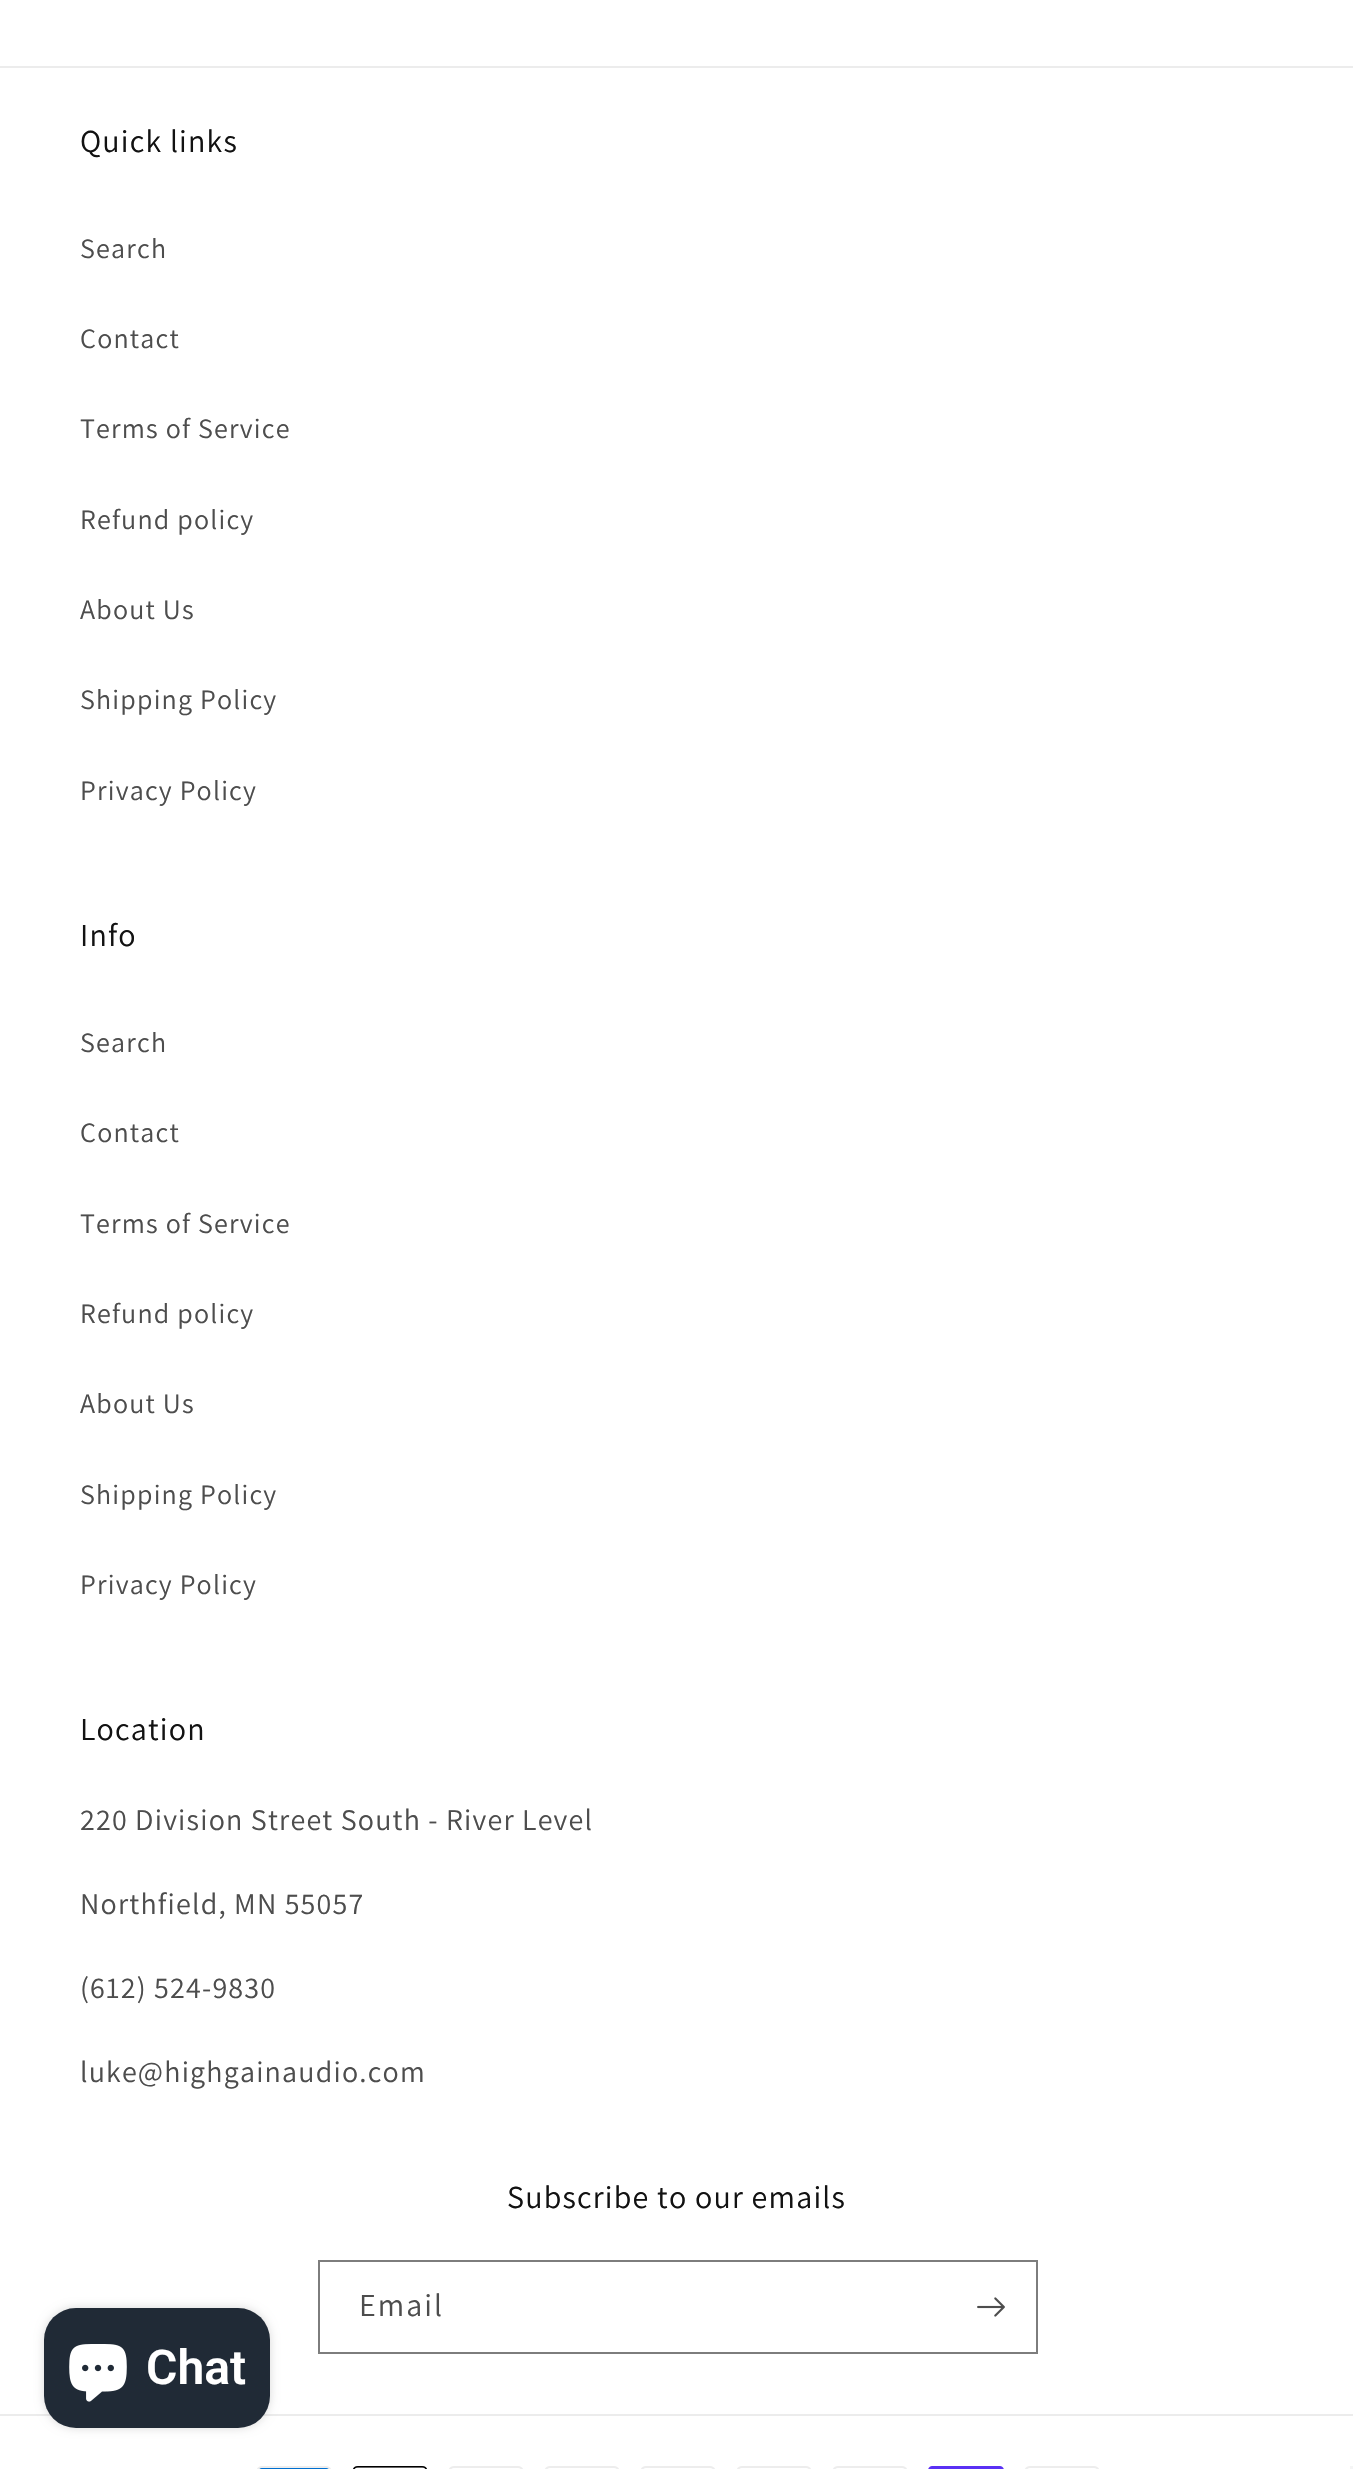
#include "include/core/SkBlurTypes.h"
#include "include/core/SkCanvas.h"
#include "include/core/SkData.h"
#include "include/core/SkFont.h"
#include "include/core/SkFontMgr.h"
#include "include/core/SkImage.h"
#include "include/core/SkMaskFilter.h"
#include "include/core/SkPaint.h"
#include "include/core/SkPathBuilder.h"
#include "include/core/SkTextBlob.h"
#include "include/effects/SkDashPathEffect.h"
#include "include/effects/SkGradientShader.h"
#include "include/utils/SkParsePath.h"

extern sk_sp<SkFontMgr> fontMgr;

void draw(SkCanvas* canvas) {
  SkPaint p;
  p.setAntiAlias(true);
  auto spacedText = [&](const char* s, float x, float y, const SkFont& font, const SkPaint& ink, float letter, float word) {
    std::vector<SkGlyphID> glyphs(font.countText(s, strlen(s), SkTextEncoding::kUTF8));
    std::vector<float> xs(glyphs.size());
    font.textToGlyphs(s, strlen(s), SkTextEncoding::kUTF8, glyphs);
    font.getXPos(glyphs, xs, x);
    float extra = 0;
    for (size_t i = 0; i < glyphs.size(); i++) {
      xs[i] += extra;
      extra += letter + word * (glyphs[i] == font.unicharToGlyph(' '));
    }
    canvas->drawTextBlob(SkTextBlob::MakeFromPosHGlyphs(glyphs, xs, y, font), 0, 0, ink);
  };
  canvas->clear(SK_ColorWHITE);
  p.setColor(SkColorSetRGB(236, 236, 236));
  canvas->drawRect(SkRect::MakeLTRB(0, 66, 1353, 68), p);
  p.setStyle(SkPaint::kStroke_Style);
  p.setStrokeWidth(2);
  p.setColor(SkColorSetRGB(125, 125, 125));
  canvas->drawRect(SkRect::MakeLTRB(319, 2261, 1037, 2353), p);
  canvas->drawImageRect(SkImages::DeferredFromEncodedData(SkData::MakeFromFileName("images/1.png")), SkRect::MakeLTRB(977, 2297, 1005, 2317), SkSamplingOptions());
  p.setStyle(SkPaint::kFill_Style);
  p.setColor(SkColorSetRGB(236, 236, 236));
  canvas->drawRect(SkRect::MakeLTRB(0, 2414, 1353, 2416), p);
  canvas->drawImageRect(SkImages::DeferredFromEncodedData(SkData::MakeFromFileName("images/2.png")), SkRect::MakeLTRB(257, 2466, 331, 2469), SkSamplingOptions());
  canvas->drawImageRect(SkImages::DeferredFromEncodedData(SkData::MakeFromFileName("images/3.png")), SkRect::MakeLTRB(353, 2466, 427, 2469), SkSamplingOptions());
  canvas->drawImageRect(SkImages::DeferredFromEncodedData(SkData::MakeFromFileName("images/4.png")), SkRect::MakeLTRB(449, 2466, 523, 2469), SkSamplingOptions());
  canvas->drawImageRect(SkImages::DeferredFromEncodedData(SkData::MakeFromFileName("images/4.png")), SkRect::MakeLTRB(545, 2466, 619, 2469), SkSamplingOptions());
  canvas->drawImageRect(SkImages::DeferredFromEncodedData(SkData::MakeFromFileName("images/4.png")), SkRect::MakeLTRB(641, 2466, 715, 2469), SkSamplingOptions());
  canvas->drawImageRect(SkImages::DeferredFromEncodedData(SkData::MakeFromFileName("images/4.png")), SkRect::MakeLTRB(737, 2466, 811, 2469), SkSamplingOptions());
  canvas->drawImageRect(SkImages::DeferredFromEncodedData(SkData::MakeFromFileName("images/4.png")), SkRect::MakeLTRB(833, 2466, 907, 2469), SkSamplingOptions());
  canvas->drawImageRect(SkImages::DeferredFromEncodedData(SkData::MakeFromFileName("images/5.png")), SkRect::MakeLTRB(928, 2466, 1004, 2469), SkSamplingOptions());
  canvas->drawImageRect(SkImages::DeferredFromEncodedData(SkData::MakeFromFileName("images/4.png")), SkRect::MakeLTRB(1025, 2466, 1099, 2469), SkSamplingOptions());
  p.setColor(SkColorSetARGB(38, 0, 0, 0));
  p.setMaskFilter(SkMaskFilter::MakeBlur(kNormal_SkBlurStyle, 5));
  canvas->drawRoundRect(SkRect::MakeLTRB(44, 2308, 270, 2428), 32, 32, p);
  p.setMaskFilter(nullptr);
  p.setColor(SkColorSetRGB(32, 42, 54));
  canvas->drawRoundRect(SkRect::MakeLTRB(44, 2308, 270, 2428), 32, 32, p);
  canvas->drawImageRect(SkImages::DeferredFromEncodedData(SkData::MakeFromFileName("images/6.png")), SkRect::MakeLTRB(69, 2344, 127, 2402), SkSamplingOptions());
  p.setColor(SkColorSetRGB(245, 245, 245));
  canvas->drawRect(SkRect::MakeLTRB(1350, 2466, 1353, 2469), p);
  SkFont font1(fontMgr->matchFamilyStyle("Assistant", SkFontStyle::Normal()), 32);
  font1.setSubpixel(true);
  p.setColor(SkColorSetRGB(18, 18, 18));
  spacedText("Quick links", 80, 152, font1, p, 1.2f, 0);
  SkFont font2(fontMgr->matchFamilyStyle("Assistant", SkFontStyle::Normal()), 28);
  font2.setSubpixel(true);
  p.setColor(SkColorSetRGB(77, 77, 77));
  spacedText("Search", 80, 258, font2, p, 1.2f, 0);
  spacedText("Contact", 80, 348, font2, p, 1.2f, 0);
  spacedText("Terms of Service", 80, 438, font2, p, 1.2f, 0);
  spacedText("Refund policy", 80, 529, font2, p, 1.2f, 0);
  spacedText("About Us", 80, 619, font2, p, 1.2f, 0);
  spacedText("Shipping Policy", 80, 709, font2, p, 1.2f, 0);
  spacedText("Privacy Policy", 80, 800, font2, p, 1.2f, 0);
  p.setColor(SkColorSetRGB(18, 18, 18));
  spacedText("Info", 80, 946, font1, p, 1.2f, 0);
  p.setColor(SkColorSetRGB(77, 77, 77));
  spacedText("Search", 80, 1052, font2, p, 1.2f, 0);
  spacedText("Contact", 80, 1142, font2, p, 1.2f, 0);
  spacedText("Terms of Service", 80, 1233, font2, p, 1.2f, 0);
  spacedText("Refund policy", 80, 1323, font2, p, 1.2f, 0);
  spacedText("About Us", 80, 1413, font2, p, 1.2f, 0);
  spacedText("Shipping Policy", 80, 1504, font2, p, 1.2f, 0);
  spacedText("Privacy Policy", 80, 1594, font2, p, 1.2f, 0);
  p.setColor(SkColorSetRGB(18, 18, 18));
  spacedText("Location", 80, 1740, font1, p, 1.2f, 0);
  SkFont font3(fontMgr->matchFamilyStyle("Assistant", SkFontStyle::Normal()), 30);
  font3.setSubpixel(true);
  p.setColor(SkColorSetRGB(77, 77, 77));
  spacedText("220 Division Street South - River Level", 80, 1830, font3, p, 1.2f, 0);
  spacedText("Northfield, MN 55057", 80, 1914, font3, p, 1.2f, 0);
  spacedText("(612) 524-9830", 80, 1998, font3, p, 1.2f, 0);
  spacedText("luke@highgainaudio.com", 80, 2082, font3, p, 1.2f, 0);
  p.setColor(SkColorSetRGB(18, 18, 18));
  spacedText("Subscribe to our emails", 507, 2208, font1, p, 1.2f, 0);
  p.setColor(SkColorSetRGB(77, 77, 77));
  spacedText("Email", 359, 2316, font1, p, 2, 0);
  SkFont font4(fontMgr->matchFamilyStyle("Roboto", SkFontStyle(600, SkFontStyle::kNormal_Width, SkFontStyle::kUpright_Slant)), 48);
  font4.setSubpixel(true);
  p.setColor(SK_ColorWHITE);
  canvas->drawString("Chat", 146, 2384, font4, p);
}
